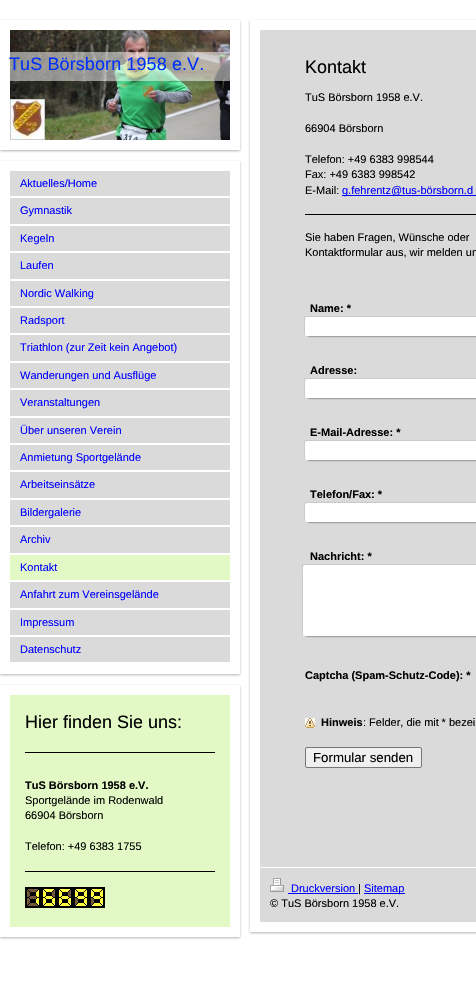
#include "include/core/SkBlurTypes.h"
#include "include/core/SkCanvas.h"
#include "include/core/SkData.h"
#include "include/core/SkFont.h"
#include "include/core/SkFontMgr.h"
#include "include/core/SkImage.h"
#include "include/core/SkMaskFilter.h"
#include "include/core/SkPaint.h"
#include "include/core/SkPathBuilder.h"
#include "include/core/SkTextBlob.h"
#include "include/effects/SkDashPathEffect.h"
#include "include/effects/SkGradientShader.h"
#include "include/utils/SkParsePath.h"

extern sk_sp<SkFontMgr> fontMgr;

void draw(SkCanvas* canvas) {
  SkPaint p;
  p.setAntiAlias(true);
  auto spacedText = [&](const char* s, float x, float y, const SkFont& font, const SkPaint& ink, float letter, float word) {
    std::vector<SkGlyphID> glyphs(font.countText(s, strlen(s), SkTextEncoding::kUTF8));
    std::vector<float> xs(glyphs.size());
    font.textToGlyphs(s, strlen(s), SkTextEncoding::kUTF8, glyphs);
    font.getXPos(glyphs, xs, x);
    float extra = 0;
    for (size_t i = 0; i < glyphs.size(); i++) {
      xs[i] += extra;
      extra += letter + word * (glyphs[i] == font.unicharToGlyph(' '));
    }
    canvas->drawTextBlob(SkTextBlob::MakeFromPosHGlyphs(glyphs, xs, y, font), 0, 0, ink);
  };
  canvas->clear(SK_ColorWHITE);
  canvas->drawImageRect(SkImages::DeferredFromEncodedData(SkData::MakeFromFileName("images/1.png")), SkRect::MakeLTRB(0, 19, 242, 30), SkSamplingOptions());
  canvas->drawImageRect(SkImages::DeferredFromEncodedData(SkData::MakeFromFileName("images/2.png")), SkRect::MakeLTRB(0, 140, 242, 153), SkSamplingOptions());
  canvas->drawImageRect(SkImages::DeferredFromEncodedData(SkData::MakeFromFileName("images/3.png")), SkRect::MakeLTRB(240, 30, 242, 140), SkSamplingOptions());
  canvas->drawImageRect(SkImages::DeferredFromEncodedData(SkData::MakeFromFileName("images/4.png")), SkRect::MakeLTRB(10, 30, 230, 140), SkSamplingOptions());
  p.setColor(SkColorSetARGB(128, 255, 255, 255));
  canvas->drawRect(SkRect::MakeLTRB(10, 52, 230, 81), p);
  p.setStyle(SkPaint::kStroke_Style);
  p.setStrokeWidth(1);
  p.setColor(SkColorSetRGB(204, 204, 204));
  canvas->drawRect(SkRect::MakeLTRB(10.5f, 99.5f, 44.5f, 139.5f), p);
  canvas->drawImageRect(SkImages::DeferredFromEncodedData(SkData::MakeFromFileName("images/5.png")), SkRect::MakeLTRB(11, 100, 44, 139), SkSamplingOptions());
  canvas->drawImageRect(SkImages::DeferredFromEncodedData(SkData::MakeFromFileName("images/1.png")), SkRect::MakeLTRB(0, 160, 242, 171), SkSamplingOptions());
  canvas->drawImageRect(SkImages::DeferredFromEncodedData(SkData::MakeFromFileName("images/2.png")), SkRect::MakeLTRB(0, 664, 242, 677), SkSamplingOptions());
  canvas->drawImageRect(SkImages::DeferredFromEncodedData(SkData::MakeFromFileName("images/6.png")), SkRect::MakeLTRB(240, 171, 242, 664), SkSamplingOptions());
  p.setStyle(SkPaint::kFill_Style);
  p.setColor(SkColorSetRGB(226, 249, 197));
  canvas->drawRect(SkRect::MakeLTRB(10, 555, 230, 580), p);
  p.setColor(SkColorSetRGB(218, 218, 218));
  canvas->drawRect(SkRect::MakeLTRB(10, 171, 230, 196), p);
  canvas->drawRect(SkRect::MakeLTRB(10, 198, 230, 224), p);
  canvas->drawRect(SkRect::MakeLTRB(10, 226, 230, 251), p);
  canvas->drawRect(SkRect::MakeLTRB(10, 253, 230, 279), p);
  canvas->drawRect(SkRect::MakeLTRB(10, 281, 230, 306), p);
  canvas->drawRect(SkRect::MakeLTRB(10, 308, 230, 333), p);
  canvas->drawRect(SkRect::MakeLTRB(10, 335, 230, 361), p);
  canvas->drawRect(SkRect::MakeLTRB(10, 363, 230, 388), p);
  canvas->drawRect(SkRect::MakeLTRB(10, 390, 230, 416), p);
  canvas->drawRect(SkRect::MakeLTRB(10, 418, 230, 443), p);
  canvas->drawRect(SkRect::MakeLTRB(10, 445, 230, 470), p);
  canvas->drawRect(SkRect::MakeLTRB(10, 472, 230, 498), p);
  canvas->drawRect(SkRect::MakeLTRB(10, 500, 230, 525), p);
  canvas->drawRect(SkRect::MakeLTRB(10, 527, 230, 553), p);
  canvas->drawRect(SkRect::MakeLTRB(10, 582, 230, 608), p);
  canvas->drawRect(SkRect::MakeLTRB(10, 610, 230, 635), p);
  canvas->drawRect(SkRect::MakeLTRB(10, 637, 230, 662), p);
  canvas->drawImageRect(SkImages::DeferredFromEncodedData(SkData::MakeFromFileName("images/1.png")), SkRect::MakeLTRB(0, 684, 242, 695), SkSamplingOptions());
  canvas->drawImageRect(SkImages::DeferredFromEncodedData(SkData::MakeFromFileName("images/2.png")), SkRect::MakeLTRB(0, 927, 242, 940), SkSamplingOptions());
  canvas->drawImageRect(SkImages::DeferredFromEncodedData(SkData::MakeFromFileName("images/7.png")), SkRect::MakeLTRB(240, 695, 242, 927), SkSamplingOptions());
  p.setColor(SkColorSetRGB(226, 249, 197));
  canvas->drawRect(SkRect::MakeLTRB(10, 695, 230, 927), p);
  p.setColor(SK_ColorBLACK);
  canvas->drawRect(SkRect::MakeLTRB(25, 752, 215, 753), p);
  canvas->drawRect(SkRect::MakeLTRB(25, 871, 215, 872), p);
  canvas->drawImageRect(SkImages::DeferredFromEncodedData(SkData::MakeFromFileName("images/8.png")), SkRect::MakeLTRB(25, 887, 41, 908), SkSamplingOptions());
  canvas->drawImageRect(SkImages::DeferredFromEncodedData(SkData::MakeFromFileName("images/9.png")), SkRect::MakeLTRB(41, 887, 57, 908), SkSamplingOptions());
  canvas->drawImageRect(SkImages::DeferredFromEncodedData(SkData::MakeFromFileName("images/9.png")), SkRect::MakeLTRB(57, 887, 73, 908), SkSamplingOptions());
  canvas->drawImageRect(SkImages::DeferredFromEncodedData(SkData::MakeFromFileName("images/10.png")), SkRect::MakeLTRB(73, 887, 89, 908), SkSamplingOptions());
  canvas->drawImageRect(SkImages::DeferredFromEncodedData(SkData::MakeFromFileName("images/10.png")), SkRect::MakeLTRB(89, 887, 105, 908), SkSamplingOptions());
  canvas->drawImageRect(SkImages::DeferredFromEncodedData(SkData::MakeFromFileName("images/11.png")), SkRect::MakeLTRB(248, 19, 476, 30), SkSamplingOptions());
  canvas->drawImageRect(SkImages::DeferredFromEncodedData(SkData::MakeFromFileName("images/12.png")), SkRect::MakeLTRB(248, 922, 476, 935), SkSamplingOptions());
  canvas->drawImageRect(SkImages::DeferredFromEncodedData(SkData::MakeFromFileName("images/13.png")), SkRect::MakeLTRB(248, 30, 476, 922), SkSamplingOptions());
  p.setColor(SkColorSetRGB(0, 0, 255));
  canvas->drawRect(SkRect::MakeLTRB(342, 195, 476, 196), p);
  p.setColor(SK_ColorBLACK);
  canvas->drawRect(SkRect::MakeLTRB(305, 214, 476, 215), p);
  p.setColor(SkColorSetRGB(201, 201, 201));
  canvas->drawPath(SkPathBuilder().moveTo(306, 316).cubicTo(303, 316, 304, 324, 304, 326).cubicTo(304, 327, 303, 334, 305, 335).lineTo(305, 326).cubicTo(305, 325, 304, 317, 307, 317).lineTo(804, 317).lineTo(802, 316).close().detach(), p);
  p.setColor(SkColorSetARGB(204, 0, 0, 0));
  p.setMaskFilter(SkMaskFilter::MakeBlur(kNormal_SkBlurStyle, 1));
  canvas->drawRect(SkRect::MakeLTRB(308, 321, 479, 336), p);
  p.setMaskFilter(nullptr);
  p.setColor(SK_ColorWHITE);
  canvas->drawRoundRect(SkRect::MakeLTRB(305, 317, 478, 336), 2, 2, p);
  p.setColor(SkColorSetRGB(201, 201, 201));
  canvas->drawPath(SkPathBuilder().moveTo(306, 378).cubicTo(303, 378, 304, 386, 304, 388).cubicTo(304, 389, 303, 396, 305, 397).lineTo(305, 388).cubicTo(305, 387, 304, 379, 307, 379).lineTo(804, 379).lineTo(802, 378).close().detach(), p);
  p.setColor(SkColorSetARGB(204, 0, 0, 0));
  p.setMaskFilter(SkMaskFilter::MakeBlur(kNormal_SkBlurStyle, 1));
  canvas->drawRect(SkRect::MakeLTRB(308, 383, 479, 398), p);
  p.setMaskFilter(nullptr);
  p.setColor(SK_ColorWHITE);
  canvas->drawRoundRect(SkRect::MakeLTRB(305, 379, 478, 398), 2, 2, p);
  p.setColor(SkColorSetRGB(201, 201, 201));
  canvas->drawPath(SkPathBuilder().moveTo(306, 440).cubicTo(303, 440, 304, 448, 304, 450).cubicTo(304, 451, 303, 458, 305, 459).lineTo(305, 450).cubicTo(305, 449, 304, 441, 307, 441).lineTo(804, 441).lineTo(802, 440).close().detach(), p);
  p.setColor(SkColorSetARGB(204, 0, 0, 0));
  p.setMaskFilter(SkMaskFilter::MakeBlur(kNormal_SkBlurStyle, 1));
  canvas->drawRect(SkRect::MakeLTRB(308, 445, 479, 460), p);
  p.setMaskFilter(nullptr);
  p.setColor(SK_ColorWHITE);
  canvas->drawRoundRect(SkRect::MakeLTRB(305, 441, 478, 460), 2, 2, p);
  p.setColor(SkColorSetRGB(201, 201, 201));
  canvas->drawPath(SkPathBuilder().moveTo(306, 502).cubicTo(303, 502, 304, 510, 304, 512).cubicTo(304, 513, 303, 520, 305, 521).lineTo(305, 512).cubicTo(305, 511, 304, 503, 307, 503).lineTo(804, 503).lineTo(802, 502).close().detach(), p);
  p.setColor(SkColorSetARGB(204, 0, 0, 0));
  p.setMaskFilter(SkMaskFilter::MakeBlur(kNormal_SkBlurStyle, 1));
  canvas->drawRect(SkRect::MakeLTRB(308, 507, 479, 522), p);
  p.setMaskFilter(nullptr);
  p.setColor(SK_ColorWHITE);
  canvas->drawRoundRect(SkRect::MakeLTRB(305, 503, 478, 522), 2, 2, p);
  p.setColor(SkColorSetRGB(201, 201, 201));
  canvas->drawPath(SkPathBuilder().moveTo(304, 564).lineTo(302, 565).lineTo(302, 633).lineTo(303, 635).lineTo(303, 578).cubicTo(303, 574, 301, 565, 305, 565).lineTo(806, 565).lineTo(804, 564).close().detach(), p);
  p.setColor(SkColorSetARGB(204, 0, 0, 0));
  p.setMaskFilter(SkMaskFilter::MakeBlur(kNormal_SkBlurStyle, 1));
  canvas->drawRect(SkRect::MakeLTRB(306, 569, 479, 636), p);
  p.setMaskFilter(nullptr);
  p.setColor(SK_ColorWHITE);
  canvas->drawRoundRect(SkRect::MakeLTRB(303, 565, 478, 636), 2, 2, p);
  canvas->drawImageRect(SkImages::DeferredFromEncodedData(SkData::MakeFromFileName("images/14.png")), SkRect::MakeLTRB(305, 718, 315, 728), SkSamplingOptions());
  p.setColor(SkColorSetRGB(239, 239, 239));
  canvas->drawRoundRect(SkRect::MakeLTRB(305.5f, 747.5f, 421.5f, 767.5f), 1.5f, 1.5f, p);
  p.setStyle(SkPaint::kStroke_Style);
  p.setColor(SkColorSetRGB(118, 118, 118));
  canvas->drawRoundRect(SkRect::MakeLTRB(305.5f, 747.5f, 421.5f, 767.5f), 1.5f, 1.5f, p);
  p.setStyle(SkPaint::kFill_Style);
  p.setColor(SK_ColorWHITE);
  canvas->drawRect(SkRect::MakeLTRB(260, 867, 476, 868), p);
  canvas->drawImageRect(SkImages::DeferredFromEncodedData(SkData::MakeFromFileName("images/15.png")), SkRect::MakeLTRB(270, 878, 284, 892), SkSamplingOptions());
  p.setColor(SkColorSetRGB(0, 0, 255));
  canvas->drawRect(SkRect::MakeLTRB(288, 893, 358, 894), p);
  canvas->drawRect(SkRect::MakeLTRB(364, 893, 405, 894), p);
  SkFont font1(fontMgr->matchFamilyStyle("Liberation Sans", SkFontStyle::Normal()), 18);
  font1.setSubpixel(true);
  p.setColor(SkColorSetRGB(2, 49, 249));
  spacedText("TuS Börsborn 1958 e.V.", 9, 70, font1, p, 0.1f, 0);
  SkFont font2(fontMgr->matchFamilyStyle("Liberation Sans", SkFontStyle::Normal()), 11);
  font2.setSubpixel(true);
  p.setColor(SkColorSetRGB(0, 0, 255));
  canvas->drawString("Aktuelles/Home", 20, 187, font2, p);
  canvas->drawString("Gymnastik", 20, 214, font2, p);
  canvas->drawString("Kegeln", 20, 242, font2, p);
  canvas->drawString("Laufen", 20, 269, font2, p);
  canvas->drawString("Nordic Walking", 20, 297, font2, p);
  canvas->drawString("Radsport", 20, 324, font2, p);
  canvas->drawString("Triathlon (zur Zeit kein Angebot)", 20, 351, font2, p);
  canvas->drawString("Wanderungen und Ausflüge", 20, 379, font2, p);
  canvas->drawString("Veranstaltungen", 20, 406, font2, p);
  canvas->drawString("Über unseren Verein", 20, 434, font2, p);
  canvas->drawString("Anmietung Sportgelände", 20, 461, font2, p);
  canvas->drawString("Arbeitseinsätze", 20, 488, font2, p);
  canvas->drawString("Bildergalerie", 20, 516, font2, p);
  canvas->drawString("Archiv", 20, 543, font2, p);
  canvas->drawString("Kontakt", 20, 571, font2, p);
  canvas->drawString("Anfahrt zum Vereinsgelände", 20, 598, font2, p);
  canvas->drawString("Impressum", 20, 626, font2, p);
  canvas->drawString("Datenschutz", 20, 653, font2, p);
  p.setColor(SK_ColorBLACK);
  canvas->drawString("Hier finden Sie uns:", 25, 728, font1, p);
  SkFont font3(fontMgr->matchFamilyStyle("Liberation Sans", SkFontStyle::Bold()), 11);
  font3.setSubpixel(true);
  canvas->drawString("TuS Börsborn 1958 e.V.", 25, 789, font3, p);
  canvas->drawString("Sportgelände im Rodenwald", 25, 804, font2, p);
  canvas->drawString("66904 Börsborn", 25, 819, font2, p);
  canvas->drawString("Telefon: +49 6383 1755", 25, 850, font2, p);
  canvas->drawString("Kontakt", 305, 73, font1, p);
  canvas->drawString("TuS Börsborn 1958 e.V.", 305, 101, font2, p);
  canvas->drawString("66904 Börsborn", 305, 132, font2, p);
  canvas->drawString("Telefon: +49 6383 998544", 305, 163, font2, p);
  canvas->drawString("Fax: +49 6383 998542", 305, 178, font2, p);
  canvas->drawString("E-Mail:", 305, 194, font2, p);
  p.setColor(SkColorSetRGB(0, 0, 255));
  canvas->drawString("g.fehrentz@tus-börsborn.d", 342, 194, font2, p);
  p.setColor(SK_ColorBLACK);
  canvas->drawString("Sie haben Fragen, Wünsche oder", 305, 241, font2, p);
  canvas->drawString("Kontaktformular aus, wir melden un", 305, 256, font2, p);
  canvas->drawString("Name: *", 310, 312, font3, p);
  canvas->drawString("Adresse:", 310, 374, font3, p);
  canvas->drawString("E-Mail-Adresse: *", 310, 436, font3, p);
  canvas->drawString("Telefon/Fax: *", 310, 498, font3, p);
  canvas->drawString("Nachricht: *", 310, 560, font3, p);
  canvas->drawString("Captcha (Spam-Schutz-Code): *", 305, 679, font3, p);
  canvas->drawString("Hinweis", 321, 726, font3, p);
  canvas->drawString(": Felder, die mit", 363, 726, font2, p);
  SkFont font4(fontMgr->matchFamilyStyle("Liberation Sans", SkFontStyle::Italic()), 11);
  font4.setSubpixel(true);
  canvas->drawString("*", 441, 726, font4, p);
  canvas->drawString("bezei", 449, 726, font2, p);
  SkFont font5(fontMgr->matchFamilyStyle("Liberation Sans", SkFontStyle::Normal()), 13.25f);
  font5.setSubpixel(true);
  canvas->drawString("Formular senden", 313, 762, font5, p);
  p.setColor(SkColorSetRGB(0, 0, 255));
  canvas->drawString("Druckversion", 291, 892, font2, p);
  p.setColor(SK_ColorBLACK);
  canvas->drawString("|", 358, 892, font2, p);
  p.setColor(SkColorSetRGB(0, 0, 255));
  canvas->drawString("Sitemap", 364, 892, font2, p);
  p.setColor(SK_ColorBLACK);
  canvas->drawString("© TuS Börsborn 1958 e.V.", 270, 907, font2, p);
}
